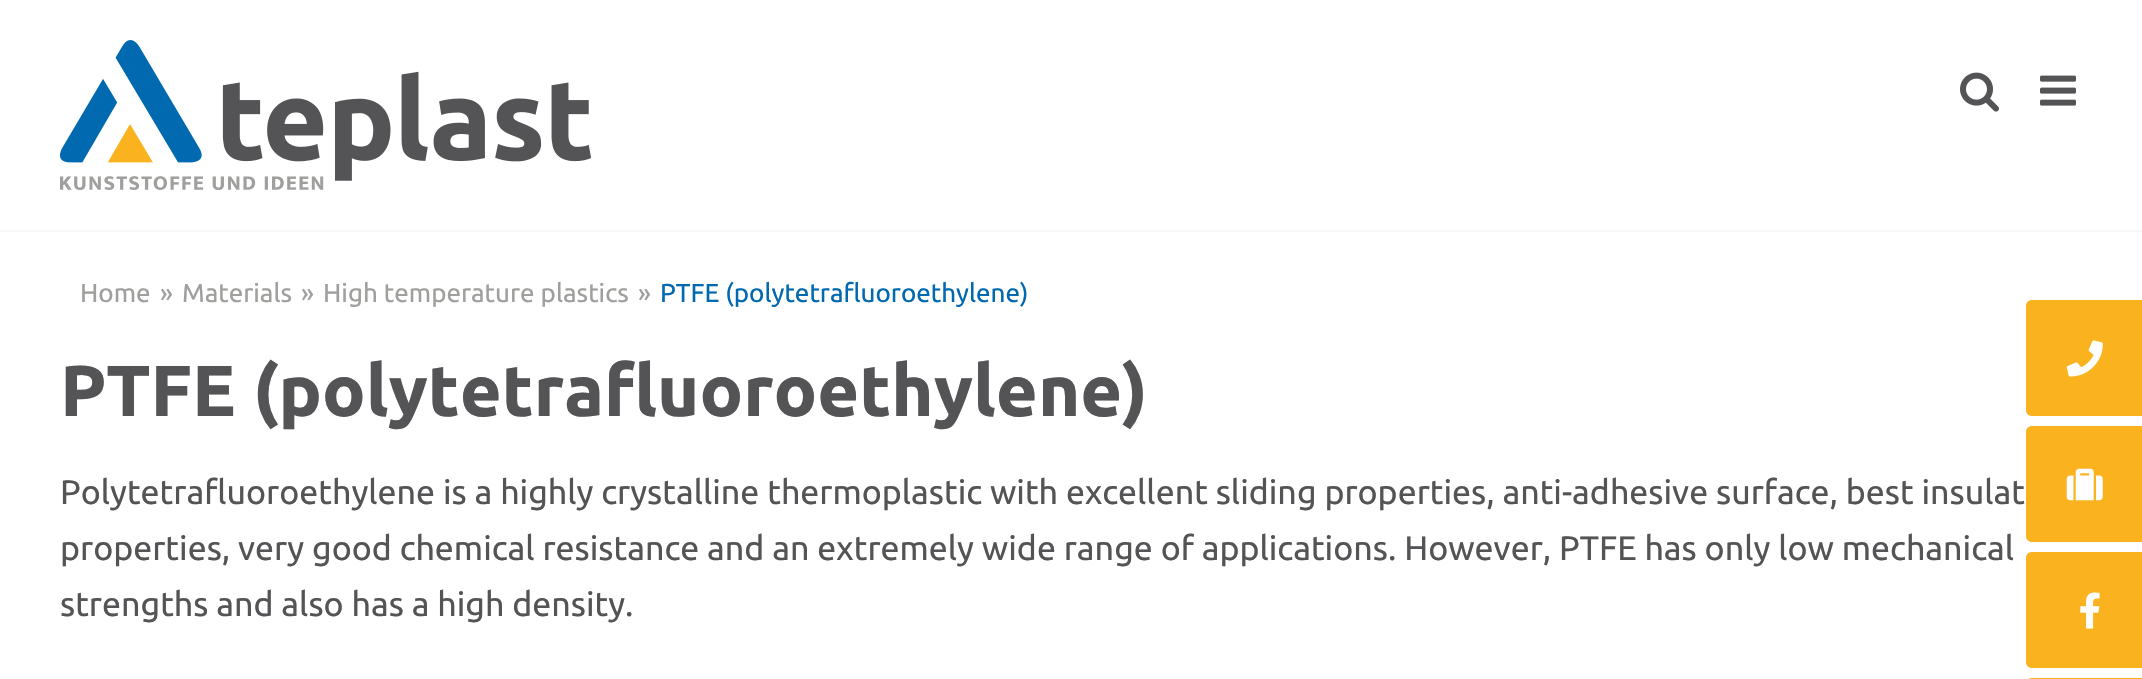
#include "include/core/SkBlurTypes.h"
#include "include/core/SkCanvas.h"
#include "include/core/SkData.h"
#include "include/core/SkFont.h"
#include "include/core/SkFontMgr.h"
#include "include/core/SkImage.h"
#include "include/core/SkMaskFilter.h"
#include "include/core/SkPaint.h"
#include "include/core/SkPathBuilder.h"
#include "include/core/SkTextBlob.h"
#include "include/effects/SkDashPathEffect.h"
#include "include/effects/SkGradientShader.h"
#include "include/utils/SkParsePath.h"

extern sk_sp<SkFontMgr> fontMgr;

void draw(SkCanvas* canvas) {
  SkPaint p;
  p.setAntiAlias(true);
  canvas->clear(SK_ColorWHITE);
  p.setColor(SkColorSetRGB(246, 246, 246));
  canvas->drawRect(SkRect::MakeLTRB(0, 230, 2142, 232), p);
  canvas->drawImageRect(SkImages::DeferredFromEncodedData(SkData::MakeFromFileName("images/1.png")), SkRect::MakeLTRB(60, 40, 591, 190), SkSamplingOptions());
  canvas->drawImageRect(SkImages::DeferredFromEncodedData(SkData::MakeFromFileName("images/2.png")), SkRect::MakeLTRB(1960, 72, 1999, 112), SkSamplingOptions());
  canvas->drawImageRect(SkImages::DeferredFromEncodedData(SkData::MakeFromFileName("images/3.png")), SkRect::MakeLTRB(2040, 75, 2076, 106), SkSamplingOptions());
  p.setColor(SkColorSetRGB(250, 179, 30));
  canvas->drawPath(SkPathBuilder().moveTo(2032, 300).lineTo(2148, 300).lineTo(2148, 416).lineTo(2032, 416).cubicTo(2028.5f, 416, 2026, 413.5f, 2026, 410).lineTo(2026, 306).cubicTo(2026, 302.5f, 2028.5f, 300, 2032, 300).close().detach(), p);
  canvas->drawImageRect(SkImages::DeferredFromEncodedData(SkData::MakeFromFileName("images/4.png")), SkRect::MakeLTRB(2066, 340, 2103, 377), SkSamplingOptions());
  canvas->drawPath(SkPathBuilder().moveTo(2032, 426).lineTo(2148, 426).lineTo(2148, 542).lineTo(2032, 542).cubicTo(2028.5f, 542, 2026, 539.5f, 2026, 536).lineTo(2026, 432).cubicTo(2026, 428.5f, 2028.5f, 426, 2032, 426).close().detach(), p);
  canvas->drawImageRect(SkImages::DeferredFromEncodedData(SkData::MakeFromFileName("images/5.png")), SkRect::MakeLTRB(2066, 468, 2103, 501), SkSamplingOptions());
  canvas->drawPath(SkPathBuilder().moveTo(2032, 552).lineTo(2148, 552).lineTo(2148, 668).lineTo(2032, 668).cubicTo(2028.5f, 668, 2026, 665.5f, 2026, 662).lineTo(2026, 558).cubicTo(2026, 554.5f, 2028.5f, 552, 2032, 552).close().detach(), p);
  canvas->drawImageRect(SkImages::DeferredFromEncodedData(SkData::MakeFromFileName("images/6.png")), SkRect::MakeLTRB(2080, 592, 2100, 629), SkSamplingOptions());
  canvas->drawPath(SkPathBuilder().moveTo(2032, 678).lineTo(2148, 678).lineTo(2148, 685).lineTo(2032, 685).cubicTo(2028.5f, 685, 2026, 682.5f, 2026, 679).lineTo(2026, 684).cubicTo(2026, 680.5f, 2028.5f, 678, 2032, 678).close().detach(), p);
  SkFont font1(fontMgr->matchFamilyStyle("Ubuntu", SkFontStyle::Normal()), 26);
  font1.setSubpixel(true);
  p.setColor(SkColorSetRGB(159, 160, 157));
  canvas->drawString("Home", 80, 302, font1, p);
  canvas->drawString("»", 160, 302, font1, p);
  canvas->drawString("Materials", 182, 302, font1, p);
  canvas->drawString("»", 301, 302, font1, p);
  canvas->drawString("High temperature plastics", 323, 302, font1, p);
  canvas->drawString("»", 638, 302, font1, p);
  p.setColor(SkColorSetRGB(0, 105, 175));
  canvas->drawString("PTFE (polytetrafluoroethylene)", 660, 302, font1, p);
  SkFont font2(fontMgr->matchFamilyStyle("Ubuntu", SkFontStyle::Bold()), 72);
  font2.setSubpixel(true);
  p.setColor(SkColorSetRGB(84, 84, 86));
  canvas->drawString("PTFE (polytetrafluoroethylene)", 60, 416, font2, p);
  SkFont font3(fontMgr->matchFamilyStyle("Ubuntu", SkFontStyle::Normal()), 34);
  font3.setSubpixel(true);
  canvas->drawString("Polytetrafluoroethylene is a highly crystalline thermoplastic with excellent sliding properties, anti-adhesive surface, best insulat", 60, 504, font3, p);
  canvas->drawString("properties, very good chemical resistance and an extremely wide range of applications. However, PTFE has only low mechanical", 60, 560, font3, p);
  canvas->drawString("strengths and also has a high density.", 60, 616, font3, p);
}
